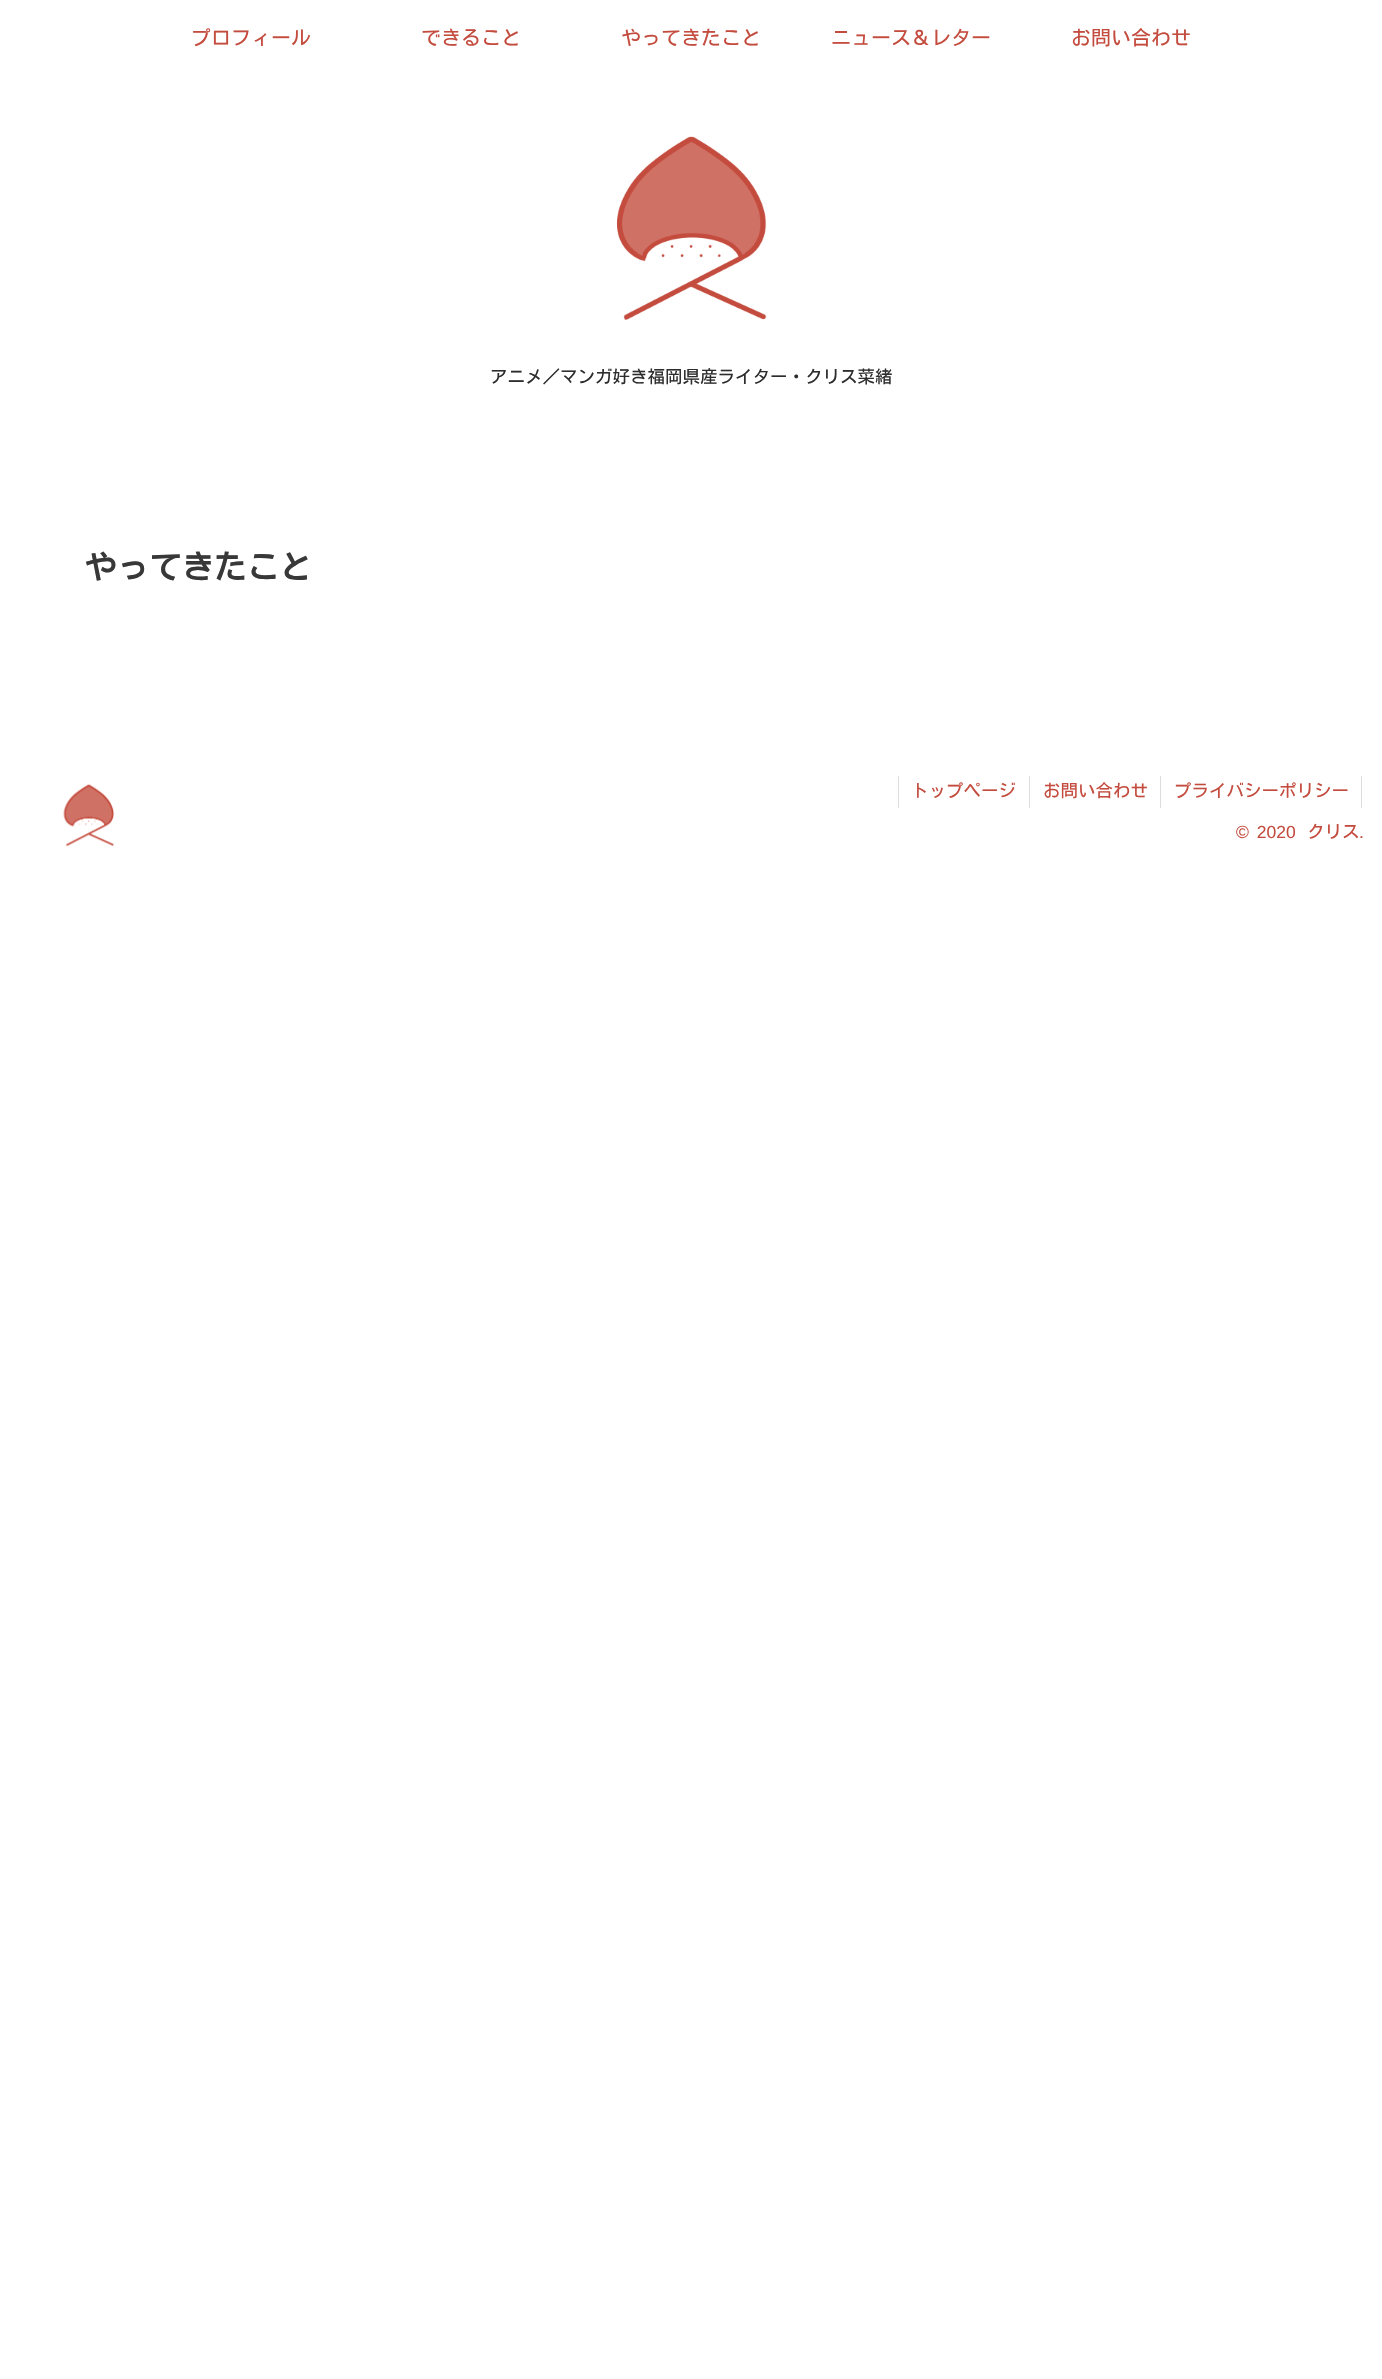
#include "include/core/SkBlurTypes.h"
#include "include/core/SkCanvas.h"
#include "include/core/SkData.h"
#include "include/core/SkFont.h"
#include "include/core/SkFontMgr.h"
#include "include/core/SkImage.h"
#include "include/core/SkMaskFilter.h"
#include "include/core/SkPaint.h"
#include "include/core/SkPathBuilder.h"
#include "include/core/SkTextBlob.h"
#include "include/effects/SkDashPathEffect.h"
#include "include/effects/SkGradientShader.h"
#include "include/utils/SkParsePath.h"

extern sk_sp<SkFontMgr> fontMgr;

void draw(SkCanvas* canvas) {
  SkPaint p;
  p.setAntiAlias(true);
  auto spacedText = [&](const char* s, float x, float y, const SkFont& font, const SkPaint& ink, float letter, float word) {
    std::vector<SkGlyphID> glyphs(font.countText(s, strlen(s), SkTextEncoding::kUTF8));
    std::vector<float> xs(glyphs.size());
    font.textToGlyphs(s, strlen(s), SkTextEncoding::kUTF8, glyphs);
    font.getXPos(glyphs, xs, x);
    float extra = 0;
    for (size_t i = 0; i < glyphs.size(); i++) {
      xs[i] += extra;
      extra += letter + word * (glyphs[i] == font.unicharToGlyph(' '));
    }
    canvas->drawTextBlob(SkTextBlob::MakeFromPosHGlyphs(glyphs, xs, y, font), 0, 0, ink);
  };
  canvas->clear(SK_ColorWHITE);
  canvas->drawImageRect(SkImages::DeferredFromEncodedData(SkData::MakeFromFileName("images/1.png")), SkRect::MakeLTRB(616, 136, 767, 320), SkSamplingOptions());
  canvas->drawImageRect(SkImages::DeferredFromEncodedData(SkData::MakeFromFileName("images/2.png")), SkRect::MakeLTRB(63, 784, 115, 847), SkSamplingOptions());
  p.setColor(SkColorSetRGB(221, 221, 221));
  canvas->drawRect(SkRect::MakeLTRB(898, 776, 899, 808), p);
  canvas->drawRect(SkRect::MakeLTRB(1029, 776, 1030, 808), p);
  canvas->drawRect(SkRect::MakeLTRB(1361, 776, 1362, 808), p);
  canvas->drawRect(SkRect::MakeLTRB(1160, 776, 1161, 808), p);
  SkFont font1(fontMgr->matchFamilyStyle("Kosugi", SkFontStyle::Normal()), 20);
  font1.setSubpixel(true);
  p.setColor(SkColorSetRGB(196, 76, 62));
  canvas->drawString("プロフィール", 191, 45, font1, p);
  canvas->drawString("できること", 421, 45, font1, p);
  canvas->drawString("やってきたこと", 621, 45, font1, p);
  canvas->drawString("ニュース＆レター", 831, 45, font1, p);
  canvas->drawString("お問い合わせ", 1071, 45, font1, p);
  SkFont font2(fontMgr->matchFamilyStyle("Kosugi", SkFontStyle::Normal()), 17.5f);
  font2.setSubpixel(true);
  p.setColor(SkColorSetRGB(45, 45, 45));
  canvas->drawString("アニメ／マンガ好き福岡県産ライター・クリス菜緒", 490, 383, font2, p);
  SkFont font3(fontMgr->matchFamilyStyle("Kosugi", SkFontStyle::Bold()), 32.5f);
  font3.setSubpixel(true);
  p.setColor(SkColorSetRGB(56, 56, 56));
  canvas->drawString("やってきたこと", 84, 579, font3, p);
  p.setColor(SkColorSetRGB(196, 76, 62));
  canvas->drawString("トップページ", 911, 797, font2, p);
  canvas->drawString("お問い合わせ", 1043, 797, font2, p);
  canvas->drawString("プライバシーポリシー", 1174, 797, font2, p);
  SkFont font4(fontMgr->matchFamilyStyle("Liberation Sans", SkFontStyle::Normal()), 17.5f);
  font4.setSubpixel(true);
  spacedText("© 2020", 1236, 838, font4, p, 0, 3);
  canvas->drawString("クリス", 1307, 838, font2, p);
  canvas->drawString(".", 1359, 838, font4, p);
}
